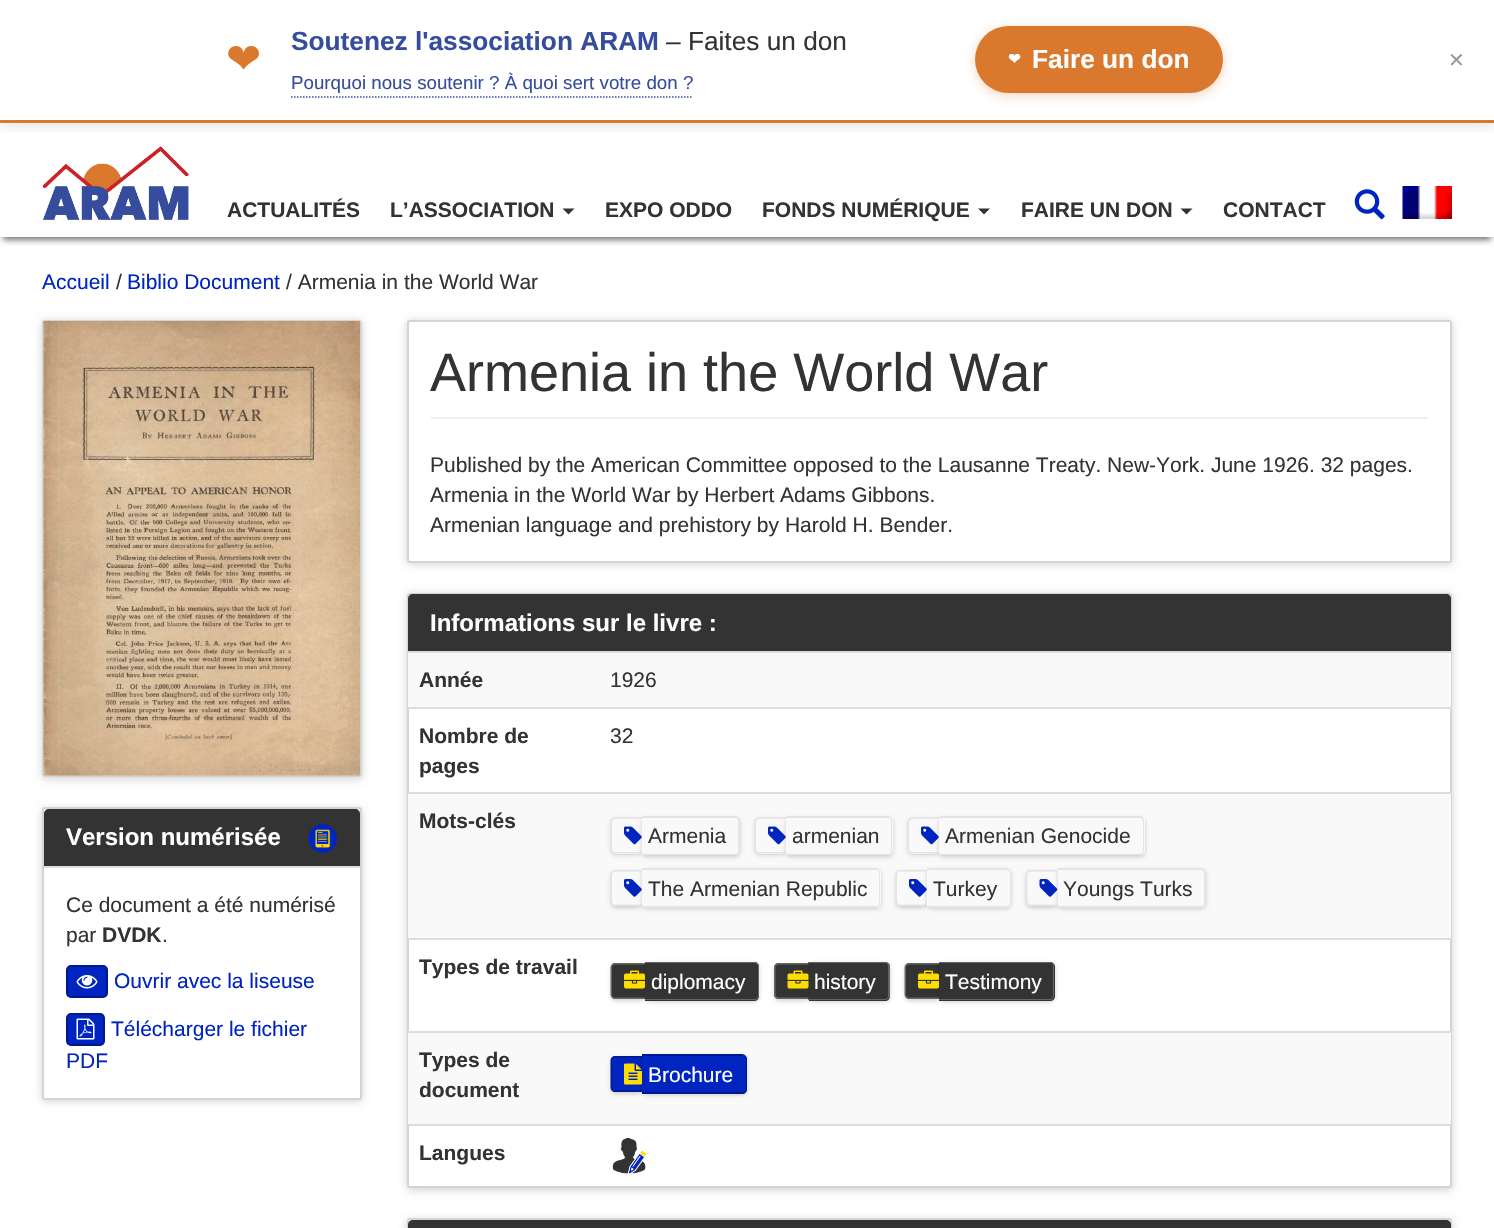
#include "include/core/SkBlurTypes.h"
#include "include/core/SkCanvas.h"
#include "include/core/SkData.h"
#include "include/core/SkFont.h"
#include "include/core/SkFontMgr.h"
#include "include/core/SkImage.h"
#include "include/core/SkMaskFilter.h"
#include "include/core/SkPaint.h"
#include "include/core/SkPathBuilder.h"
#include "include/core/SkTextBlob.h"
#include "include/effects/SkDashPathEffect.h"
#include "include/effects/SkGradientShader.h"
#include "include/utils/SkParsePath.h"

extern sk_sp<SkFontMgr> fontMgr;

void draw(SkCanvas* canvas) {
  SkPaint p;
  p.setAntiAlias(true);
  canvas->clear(SK_ColorWHITE);
  canvas->save();
  canvas->clipRect(SkRect::MakeLTRB(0, 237, 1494, 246));
  p.setColor(SkColorSetRGB(119, 119, 119));
  p.setMaskFilter(SkMaskFilter::MakeBlur(kNormal_SkBlurStyle, 3));
  canvas->drawRect(SkRect::MakeLTRB(3, 132, 1491, 240), p);
  p.setMaskFilter(nullptr);
  canvas->restore();
  canvas->drawImageRect(SkImages::DeferredFromEncodedData(SkData::MakeFromFileName("images/1.png")), SkRect::MakeLTRB(42, 146, 189, 220), SkSamplingOptions());
  canvas->save();
  canvas->clipRect(SkRect::MakeLTRB(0, 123, 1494, 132));
  p.setColor(SkColorSetARGB(26, 0, 0, 0));
  p.setMaskFilter(SkMaskFilter::MakeBlur(kNormal_SkBlurStyle, 7.5f));
  canvas->drawRect(SkRect::MakeLTRB(0, 3, 1494, 126), p);
  p.setMaskFilter(nullptr);
  canvas->restore();
  p.setColor(SkColorSetRGB(218, 120, 45));
  canvas->drawRect(SkRect::MakeLTRB(0, 120, 1494, 123), p);
  p.setStyle(SkPaint::kStroke_Style);
  p.setStrokeWidth(1.5f);
  p.setColor(SkColorSetRGB(54, 77, 157));
  p.setPathEffect(SkDashPathEffect::Make({{1.5f, 1.5f}}, 0));
  canvas->drawPath(SkPathBuilder().moveTo(291, 97).lineTo(693, 97).detach(), p);
  p.setPathEffect(nullptr);
  p.setStyle(SkPaint::kFill_Style);
  p.setColor(SkColorSetARGB(77, 218, 120, 45));
  p.setMaskFilter(SkMaskFilter::MakeBlur(kNormal_SkBlurStyle, 6));
  canvas->drawRoundRect(SkRect::MakeLTRB(975, 29, 1223, 96), 33.5f, 33.5f, p);
  p.setMaskFilter(nullptr);
  p.setColor(SkColorSetRGB(218, 120, 45));
  canvas->drawRoundRect(SkRect::MakeLTRB(975, 26, 1223, 93), 33.5f, 33.5f, p);
  p.setColor(SkColorSetRGB(51, 51, 51));
  canvas->drawPath(SkPathBuilder().moveTo(562.5f, 208.5f).lineTo(574.5f, 208.5f).lineTo(568.5f, 214.5f).close().detach(), p);
  canvas->drawPath(SkPathBuilder().moveTo(978, 208.5f).lineTo(990, 208.5f).lineTo(984, 214.5f).close().detach(), p);
  canvas->drawPath(SkPathBuilder().moveTo(1180.5f, 208.5f).lineTo(1192.5f, 208.5f).lineTo(1186.5f, 214.5f).close().detach(), p);
  canvas->drawImageRect(SkImages::DeferredFromEncodedData(SkData::MakeFromFileName("images/2.png")), SkRect::MakeLTRB(1354, 189, 1385, 220), SkSamplingOptions());
  canvas->drawImageRect(SkImages::DeferredFromEncodedData(SkData::MakeFromFileName("images/3.png")), SkRect::MakeLTRB(1402, 186, 1452, 219), SkSamplingOptions());
  p.setColor(SkColorSetARGB(46, 0, 0, 0));
  p.setMaskFilter(SkMaskFilter::MakeBlur(kNormal_SkBlurStyle, 4.5f));
  canvas->drawRoundRect(SkRect::MakeLTRB(42, 321, 362, 779), 3, 3, p);
  p.setMaskFilter(nullptr);
  p.setStyle(SkPaint::kStroke_Style);
  p.setStrokeWidth(2);
  p.setColor(SkColorSetRGB(212, 212, 212));
  canvas->drawRoundRect(SkRect::MakeLTRB(43, 321, 361, 776), 2, 2, p);
  canvas->drawImageRect(SkImages::DeferredFromEncodedData(SkData::MakeFromFileName("images/4.png")), SkRect::MakeLTRB(43, 321, 360, 776), SkSamplingOptions());
  p.setStyle(SkPaint::kFill_Style);
  p.setColor(SkColorSetARGB(46, 0, 0, 0));
  p.setMaskFilter(SkMaskFilter::MakeBlur(kNormal_SkBlurStyle, 4.5f));
  canvas->drawRoundRect(SkRect::MakeLTRB(42, 809, 362, 1101), 3, 3, p);
  p.setMaskFilter(nullptr);
  p.setColor(SK_ColorWHITE);
  canvas->drawRoundRect(SkRect::MakeLTRB(43, 808, 361, 1099), 2, 2, p);
  p.setStyle(SkPaint::kStroke_Style);
  p.setColor(SkColorSetRGB(212, 212, 212));
  canvas->drawRoundRect(SkRect::MakeLTRB(43, 808, 361, 1099), 2, 2, p);
  p.setStyle(SkPaint::kFill_Style);
  p.setColor(SkColorSetRGB(51, 51, 51));
  canvas->drawPath(SkPathBuilder().moveTo(49, 809).lineTo(355, 809).cubicTo(358, 809, 360, 811, 360, 814).lineTo(360, 867).lineTo(44, 867).lineTo(44, 814).cubicTo(44, 811, 46, 809, 49, 809).close().detach(), p);
  p.setColor(SkColorSetRGB(221, 221, 221));
  canvas->drawRect(SkRect::MakeLTRB(44, 866, 360, 868), p);
  canvas->drawImageRect(SkImages::DeferredFromEncodedData(SkData::MakeFromFileName("images/5.png")), SkRect::MakeLTRB(308, 823, 338, 854), SkSamplingOptions());
  p.setColor(SkColorSetRGB(0, 36, 192));
  canvas->drawRoundRect(SkRect::MakeLTRB(67, 966, 107, 997), 4, 4, p);
  p.setStyle(SkPaint::kStroke_Style);
  p.setColor(SkColorSetRGB(0, 26, 141));
  canvas->drawRoundRect(SkRect::MakeLTRB(67, 966, 107, 997), 4, 4, p);
  canvas->drawImageRect(SkImages::DeferredFromEncodedData(SkData::MakeFromFileName("images/6.png")), SkRect::MakeLTRB(76, 975, 98, 989), SkSamplingOptions());
  p.setStyle(SkPaint::kFill_Style);
  p.setColor(SkColorSetRGB(0, 36, 192));
  canvas->drawRoundRect(SkRect::MakeLTRB(67, 1014, 104, 1045), 4, 4, p);
  p.setStyle(SkPaint::kStroke_Style);
  p.setColor(SkColorSetRGB(0, 26, 141));
  canvas->drawRoundRect(SkRect::MakeLTRB(67, 1014, 104, 1045), 4, 4, p);
  canvas->drawImageRect(SkImages::DeferredFromEncodedData(SkData::MakeFromFileName("images/7.png")), SkRect::MakeLTRB(76, 1018, 95, 1040), SkSamplingOptions());
  p.setStyle(SkPaint::kFill_Style);
  p.setColor(SkColorSetARGB(46, 0, 0, 0));
  p.setMaskFilter(SkMaskFilter::MakeBlur(kNormal_SkBlurStyle, 4.5f));
  canvas->drawRoundRect(SkRect::MakeLTRB(407, 321, 1452, 564), 3, 3, p);
  p.setMaskFilter(nullptr);
  p.setColor(SK_ColorWHITE);
  canvas->drawRoundRect(SkRect::MakeLTRB(408, 321, 1451, 562), 2, 2, p);
  p.setStyle(SkPaint::kStroke_Style);
  p.setColor(SkColorSetRGB(212, 212, 212));
  canvas->drawRoundRect(SkRect::MakeLTRB(408, 321, 1451, 562), 2, 2, p);
  p.setStyle(SkPaint::kFill_Style);
  p.setColor(SkColorSetRGB(238, 238, 238));
  canvas->drawRect(SkRect::MakeLTRB(431, 417, 1428, 419), p);
  p.setColor(SkColorSetARGB(46, 0, 0, 0));
  p.setMaskFilter(SkMaskFilter::MakeBlur(kNormal_SkBlurStyle, 4.5f));
  canvas->drawRoundRect(SkRect::MakeLTRB(407, 594, 1452, 1190), 3, 3, p);
  p.setMaskFilter(nullptr);
  p.setColor(SK_ColorWHITE);
  canvas->drawRoundRect(SkRect::MakeLTRB(408, 594, 1451, 1187), 2, 2, p);
  p.setStyle(SkPaint::kStroke_Style);
  p.setColor(SkColorSetRGB(212, 212, 212));
  canvas->drawRoundRect(SkRect::MakeLTRB(408, 594, 1451, 1187), 2, 2, p);
  p.setStyle(SkPaint::kFill_Style);
  p.setColor(SkColorSetRGB(51, 51, 51));
  canvas->drawPath(SkPathBuilder().moveTo(413, 594).lineTo(1446, 594).cubicTo(1449, 594, 1451, 596, 1451, 599).lineTo(1451, 653).lineTo(408, 653).lineTo(408, 599).cubicTo(408, 596, 410, 594, 413, 594).close().detach(), p);
  p.setColor(SkColorSetRGB(221, 221, 221));
  canvas->drawRect(SkRect::MakeLTRB(408, 651, 1451, 653), p);
  p.setColor(SkColorSetRGB(249, 249, 249));
  canvas->drawRect(SkRect::MakeLTRB(408, 653, 1451, 707), p);
  p.setColor(SkColorSetRGB(221, 221, 221));
  canvas->drawRect(SkRect::MakeLTRB(407, 707, 1452, 709), p);
  p.setColor(SkColorSetRGB(249, 249, 249));
  canvas->drawRect(SkRect::MakeLTRB(408, 794, 1451, 938), p);
  p.setColor(SkColorSetRGB(221, 221, 221));
  canvas->drawRect(SkRect::MakeLTRB(407, 792, 1452, 794), p);
  p.setColor(SkColorSetARGB(46, 0, 0, 0));
  p.setMaskFilter(SkMaskFilter::MakeBlur(kNormal_SkBlurStyle, 2));
  canvas->drawRoundRect(SkRect::MakeLTRB(611, 819, 642, 855), 5, 5, p);
  p.setMaskFilter(nullptr);
  p.setColor(SkColorSetRGB(249, 249, 249));
  canvas->drawPath(SkPathBuilder().moveTo(616, 818).lineTo(642, 818).lineTo(642, 854).lineTo(616, 854).cubicTo(613, 854, 611, 852, 611, 849).lineTo(611, 823).cubicTo(611, 820, 613, 818, 616, 818).close().detach(), p);
  p.setColor(SkColorSetRGB(228, 228, 228));
  canvas->drawPath(SkPathBuilder(SkPathFillType::kEvenOdd).moveTo(615, 817.5f).lineTo(642, 817.5f).lineTo(642, 853.5f).lineTo(615, 853.5f).cubicTo(612.5f, 853.5f, 610.5f, 851.5f, 610.5f, 849).lineTo(610.5f, 822).cubicTo(610.5f, 819.5f, 612.5f, 817.5f, 615, 817.5f).close().moveTo(615, 819).lineTo(642, 819).lineTo(642, 852).lineTo(615, 852).cubicTo(613.5f, 852, 612, 850.5f, 612, 849).lineTo(612, 822).cubicTo(612, 820.5f, 613.5f, 819, 615, 819).close().detach(), p);
  p.setColor(SkColorSetARGB(46, 0, 0, 0));
  p.setMaskFilter(SkMaskFilter::MakeBlur(kNormal_SkBlurStyle, 2));
  canvas->drawRoundRect(SkRect::MakeLTRB(642, 818, 740, 857), 5, 5, p);
  p.setMaskFilter(nullptr);
  p.setColor(SkColorSetRGB(249, 249, 249));
  canvas->drawPath(SkPathBuilder().moveTo(642, 816).lineTo(735, 816).cubicTo(738, 816, 740, 818, 740, 821).lineTo(740, 850).cubicTo(740, 853, 738, 855, 735, 855).lineTo(642, 855).close().detach(), p);
  p.setColor(SkColorSetRGB(228, 228, 228));
  canvas->drawPath(SkPathBuilder(SkPathFillType::kEvenOdd).moveTo(642, 816).lineTo(735, 816).cubicTo(737, 816, 740, 818, 740, 820).lineTo(740, 850).cubicTo(740, 853, 737, 855, 735, 855).lineTo(642, 855).close().moveTo(642, 818).lineTo(735, 818).cubicTo(737, 818, 738, 819, 738, 820).lineTo(738, 850).cubicTo(738, 852, 737, 854, 735, 854).lineTo(642, 854).close().detach(), p);
  canvas->drawImageRect(SkImages::DeferredFromEncodedData(SkData::MakeFromFileName("images/8.png")), SkRect::MakeLTRB(624, 826, 642, 845), SkSamplingOptions());
  p.setColor(SkColorSetARGB(46, 0, 0, 0));
  p.setMaskFilter(SkMaskFilter::MakeBlur(kNormal_SkBlurStyle, 2));
  canvas->drawRoundRect(SkRect::MakeLTRB(755, 819, 786, 855), 5, 5, p);
  p.setMaskFilter(nullptr);
  p.setColor(SkColorSetRGB(249, 249, 249));
  canvas->drawPath(SkPathBuilder().moveTo(760, 818).lineTo(786, 818).lineTo(786, 854).lineTo(760, 854).cubicTo(757, 854, 755, 852, 755, 849).lineTo(755, 823).cubicTo(755, 820, 757, 818, 760, 818).close().detach(), p);
  p.setColor(SkColorSetRGB(228, 228, 228));
  canvas->drawPath(SkPathBuilder(SkPathFillType::kEvenOdd).moveTo(759, 817.5f).lineTo(786, 817.5f).lineTo(786, 853.5f).lineTo(759, 853.5f).cubicTo(756.5f, 853.5f, 754.5f, 851.5f, 754.5f, 849).lineTo(754.5f, 822).cubicTo(754.5f, 819.5f, 756.5f, 817.5f, 759, 817.5f).close().moveTo(759, 819).lineTo(786, 819).lineTo(786, 852).lineTo(759, 852).cubicTo(757.5f, 852, 756, 850.5f, 756, 849).lineTo(756, 822).cubicTo(756, 820.5f, 757.5f, 819, 759, 819).close().detach(), p);
  p.setColor(SkColorSetARGB(46, 0, 0, 0));
  p.setMaskFilter(SkMaskFilter::MakeBlur(kNormal_SkBlurStyle, 2));
  canvas->drawRoundRect(SkRect::MakeLTRB(786, 818, 893, 857), 5, 5, p);
  p.setMaskFilter(nullptr);
  p.setColor(SkColorSetRGB(249, 249, 249));
  canvas->drawPath(SkPathBuilder().moveTo(786, 816).lineTo(888, 816).cubicTo(891, 816, 893, 818, 893, 821).lineTo(893, 850).cubicTo(893, 853, 891, 855, 888, 855).lineTo(786, 855).close().detach(), p);
  p.setColor(SkColorSetRGB(228, 228, 228));
  canvas->drawPath(SkPathBuilder(SkPathFillType::kEvenOdd).moveTo(786, 816).lineTo(888, 816).cubicTo(890, 816, 892, 818, 892, 820).lineTo(892, 850).cubicTo(892, 853, 890, 855, 888, 855).lineTo(786, 855).close().moveTo(786, 818).lineTo(888, 818).cubicTo(890, 818, 891, 819, 891, 820).lineTo(891, 850).cubicTo(891, 852, 890, 854, 888, 854).lineTo(786, 854).close().detach(), p);
  canvas->drawImageRect(SkImages::DeferredFromEncodedData(SkData::MakeFromFileName("images/8.png")), SkRect::MakeLTRB(768, 826, 786, 845), SkSamplingOptions());
  p.setColor(SkColorSetARGB(46, 0, 0, 0));
  p.setMaskFilter(SkMaskFilter::MakeBlur(kNormal_SkBlurStyle, 2));
  canvas->drawRoundRect(SkRect::MakeLTRB(908, 819, 939, 855), 5, 5, p);
  p.setMaskFilter(nullptr);
  p.setColor(SkColorSetRGB(249, 249, 249));
  canvas->drawPath(SkPathBuilder().moveTo(913, 818).lineTo(939, 818).lineTo(939, 854).lineTo(913, 854).cubicTo(910, 854, 908, 852, 908, 849).lineTo(908, 823).cubicTo(908, 820, 910, 818, 913, 818).close().detach(), p);
  p.setColor(SkColorSetRGB(228, 228, 228));
  canvas->drawPath(SkPathBuilder(SkPathFillType::kEvenOdd).moveTo(912, 817.5f).lineTo(939, 817.5f).lineTo(939, 853.5f).lineTo(912, 853.5f).cubicTo(909.5f, 853.5f, 907.5f, 851.5f, 907.5f, 849).lineTo(907.5f, 822).cubicTo(907.5f, 819.5f, 909.5f, 817.5f, 912, 817.5f).close().moveTo(912, 819).lineTo(939, 819).lineTo(939, 852).lineTo(912, 852).cubicTo(910.5f, 852, 909, 850.5f, 909, 849).lineTo(909, 822).cubicTo(909, 820.5f, 910.5f, 819, 912, 819).close().detach(), p);
  p.setColor(SkColorSetARGB(46, 0, 0, 0));
  p.setMaskFilter(SkMaskFilter::MakeBlur(kNormal_SkBlurStyle, 2));
  canvas->drawRoundRect(SkRect::MakeLTRB(939, 818, 1145, 857), 5, 5, p);
  p.setMaskFilter(nullptr);
  p.setColor(SkColorSetRGB(249, 249, 249));
  canvas->drawPath(SkPathBuilder().moveTo(939, 816).lineTo(1140, 816).cubicTo(1143, 816, 1145, 818, 1145, 821).lineTo(1145, 850).cubicTo(1145, 853, 1143, 855, 1140, 855).lineTo(939, 855).close().detach(), p);
  p.setColor(SkColorSetRGB(228, 228, 228));
  canvas->drawPath(SkPathBuilder(SkPathFillType::kEvenOdd).moveTo(939, 816).lineTo(1140, 816).cubicTo(1142, 816, 1144, 818, 1144, 820).lineTo(1144, 850).cubicTo(1144, 853, 1142, 855, 1140, 855).lineTo(939, 855).close().moveTo(939, 818).lineTo(1140, 818).cubicTo(1142, 818, 1143, 819, 1143, 820).lineTo(1143, 850).cubicTo(1143, 852, 1142, 854, 1140, 854).lineTo(939, 854).close().detach(), p);
  canvas->drawImageRect(SkImages::DeferredFromEncodedData(SkData::MakeFromFileName("images/8.png")), SkRect::MakeLTRB(921, 826, 939, 845), SkSamplingOptions());
  p.setColor(SkColorSetARGB(46, 0, 0, 0));
  p.setMaskFilter(SkMaskFilter::MakeBlur(kNormal_SkBlurStyle, 2));
  canvas->drawRoundRect(SkRect::MakeLTRB(611, 872, 642, 908), 5, 5, p);
  p.setMaskFilter(nullptr);
  p.setColor(SkColorSetRGB(249, 249, 249));
  canvas->drawPath(SkPathBuilder().moveTo(616, 870).lineTo(642, 870).lineTo(642, 906).lineTo(616, 906).cubicTo(613, 906, 611, 904, 611, 901).lineTo(611, 875).cubicTo(611, 872, 613, 870, 616, 870).close().detach(), p);
  p.setColor(SkColorSetRGB(228, 228, 228));
  canvas->drawPath(SkPathBuilder(SkPathFillType::kEvenOdd).moveTo(615, 870).lineTo(642, 870).lineTo(642, 906).lineTo(615, 906).cubicTo(612.5f, 906, 610.5f, 904, 610.5f, 901.5f).lineTo(610.5f, 874.5f).cubicTo(610.5f, 872, 612.5f, 870, 615, 870).close().moveTo(615, 871.5f).lineTo(642, 871.5f).lineTo(642, 904.5f).lineTo(615, 904.5f).cubicTo(613.5f, 904.5f, 612, 903, 612, 901.5f).lineTo(612, 874.5f).cubicTo(612, 873, 613.5f, 871.5f, 615, 871.5f).close().detach(), p);
  p.setColor(SkColorSetARGB(46, 0, 0, 0));
  p.setMaskFilter(SkMaskFilter::MakeBlur(kNormal_SkBlurStyle, 2));
  canvas->drawRoundRect(SkRect::MakeLTRB(642, 870, 881, 909), 5, 5, p);
  p.setMaskFilter(nullptr);
  p.setColor(SkColorSetRGB(249, 249, 249));
  canvas->drawPath(SkPathBuilder().moveTo(642, 869).lineTo(876, 869).cubicTo(879, 869, 881, 871, 881, 874).lineTo(881, 903).cubicTo(881, 906, 879, 908, 876, 908).lineTo(642, 908).close().detach(), p);
  p.setColor(SkColorSetRGB(228, 228, 228));
  canvas->drawPath(SkPathBuilder(SkPathFillType::kEvenOdd).moveTo(642, 868).lineTo(876, 868).cubicTo(878, 868, 880, 871, 880, 873).lineTo(880, 903).cubicTo(880, 905, 878, 908, 876, 908).lineTo(642, 908).close().moveTo(642, 870).lineTo(876, 870).cubicTo(878, 870, 879, 871, 879, 873).lineTo(879, 903).cubicTo(879, 905, 878, 906, 876, 906).lineTo(642, 906).close().detach(), p);
  canvas->drawImageRect(SkImages::DeferredFromEncodedData(SkData::MakeFromFileName("images/9.png")), SkRect::MakeLTRB(624, 879, 642, 897), SkSamplingOptions());
  p.setColor(SkColorSetARGB(46, 0, 0, 0));
  p.setMaskFilter(SkMaskFilter::MakeBlur(kNormal_SkBlurStyle, 2));
  canvas->drawRoundRect(SkRect::MakeLTRB(896, 872, 927, 908), 5, 5, p);
  p.setMaskFilter(nullptr);
  p.setColor(SkColorSetRGB(249, 249, 249));
  canvas->drawPath(SkPathBuilder().moveTo(901, 870).lineTo(927, 870).lineTo(927, 906).lineTo(901, 906).cubicTo(898, 906, 896, 904, 896, 901).lineTo(896, 875).cubicTo(896, 872, 898, 870, 901, 870).close().detach(), p);
  p.setColor(SkColorSetRGB(228, 228, 228));
  canvas->drawPath(SkPathBuilder(SkPathFillType::kEvenOdd).moveTo(900, 870).lineTo(927, 870).lineTo(927, 906).lineTo(900, 906).cubicTo(897.5f, 906, 895.5f, 904, 895.5f, 901.5f).lineTo(895.5f, 874.5f).cubicTo(895.5f, 872, 897.5f, 870, 900, 870).close().moveTo(900, 871.5f).lineTo(927, 871.5f).lineTo(927, 904.5f).lineTo(900, 904.5f).cubicTo(898.5f, 904.5f, 897, 903, 897, 901.5f).lineTo(897, 874.5f).cubicTo(897, 873, 898.5f, 871.5f, 900, 871.5f).close().detach(), p);
  p.setColor(SkColorSetARGB(46, 0, 0, 0));
  p.setMaskFilter(SkMaskFilter::MakeBlur(kNormal_SkBlurStyle, 2));
  canvas->drawRoundRect(SkRect::MakeLTRB(927, 870, 1011, 909), 5, 5, p);
  p.setMaskFilter(nullptr);
  p.setColor(SkColorSetRGB(249, 249, 249));
  canvas->drawPath(SkPathBuilder().moveTo(927, 869).lineTo(1006, 869).cubicTo(1009, 869, 1011, 871, 1011, 874).lineTo(1011, 903).cubicTo(1011, 906, 1009, 908, 1006, 908).lineTo(927, 908).close().detach(), p);
  p.setColor(SkColorSetRGB(228, 228, 228));
  canvas->drawPath(SkPathBuilder(SkPathFillType::kEvenOdd).moveTo(927, 868).lineTo(1006, 868).cubicTo(1009, 868, 1011, 871, 1011, 873).lineTo(1011, 903).cubicTo(1011, 905, 1009, 908, 1006, 908).lineTo(927, 908).close().moveTo(927, 870).lineTo(1006, 870).cubicTo(1008, 870, 1010, 871, 1010, 873).lineTo(1010, 903).cubicTo(1010, 905, 1008, 906, 1006, 906).lineTo(927, 906).close().detach(), p);
  canvas->drawImageRect(SkImages::DeferredFromEncodedData(SkData::MakeFromFileName("images/9.png")), SkRect::MakeLTRB(909, 879, 927, 897), SkSamplingOptions());
  p.setColor(SkColorSetARGB(46, 0, 0, 0));
  p.setMaskFilter(SkMaskFilter::MakeBlur(kNormal_SkBlurStyle, 2));
  canvas->drawRoundRect(SkRect::MakeLTRB(1026, 872, 1058, 908), 5, 5, p);
  p.setMaskFilter(nullptr);
  p.setColor(SkColorSetRGB(249, 249, 249));
  canvas->drawPath(SkPathBuilder().moveTo(1031, 870).lineTo(1058, 870).lineTo(1058, 906).lineTo(1031, 906).cubicTo(1028, 906, 1026, 904, 1026, 901).lineTo(1026, 875).cubicTo(1026, 872, 1028, 870, 1031, 870).close().detach(), p);
  p.setColor(SkColorSetRGB(228, 228, 228));
  canvas->drawPath(SkPathBuilder(SkPathFillType::kEvenOdd).moveTo(1030.5f, 870).lineTo(1057.5f, 870).lineTo(1057.5f, 906).lineTo(1030.5f, 906).cubicTo(1028, 906, 1026, 904, 1026, 901.5f).lineTo(1026, 874.5f).cubicTo(1026, 872, 1028, 870, 1030.5f, 870).close().moveTo(1030.5f, 871.5f).lineTo(1057.5f, 871.5f).lineTo(1057.5f, 904.5f).lineTo(1030.5f, 904.5f).cubicTo(1029, 904.5f, 1027.5f, 903, 1027.5f, 901.5f).lineTo(1027.5f, 874.5f).cubicTo(1027.5f, 873, 1029, 871.5f, 1030.5f, 871.5f).close().detach(), p);
  p.setColor(SkColorSetARGB(46, 0, 0, 0));
  p.setMaskFilter(SkMaskFilter::MakeBlur(kNormal_SkBlurStyle, 2));
  canvas->drawRoundRect(SkRect::MakeLTRB(1058, 870, 1206, 909), 5, 5, p);
  p.setMaskFilter(nullptr);
  p.setColor(SkColorSetRGB(249, 249, 249));
  canvas->drawPath(SkPathBuilder().moveTo(1058, 869).lineTo(1201, 869).cubicTo(1204, 869, 1206, 871, 1206, 874).lineTo(1206, 903).cubicTo(1206, 906, 1204, 908, 1201, 908).lineTo(1058, 908).close().detach(), p);
  p.setColor(SkColorSetRGB(228, 228, 228));
  canvas->drawPath(SkPathBuilder(SkPathFillType::kEvenOdd).moveTo(1058, 868).lineTo(1202, 868).cubicTo(1204, 868, 1206, 871, 1206, 873).lineTo(1206, 903).cubicTo(1206, 905, 1204, 908, 1202, 908).lineTo(1058, 908).close().moveTo(1058, 870).lineTo(1202, 870).cubicTo(1203, 870, 1204, 871, 1204, 873).lineTo(1204, 903).cubicTo(1204, 905, 1203, 906, 1202, 906).lineTo(1058, 906).close().detach(), p);
  canvas->drawImageRect(SkImages::DeferredFromEncodedData(SkData::MakeFromFileName("images/10.png")), SkRect::MakeLTRB(1039, 879, 1058, 897), SkSamplingOptions());
  p.setColor(SkColorSetRGB(221, 221, 221));
  canvas->drawRect(SkRect::MakeLTRB(407, 938, 1452, 940), p);
  p.setColor(SkColorSetARGB(46, 0, 0, 0));
  p.setMaskFilter(SkMaskFilter::MakeBlur(kNormal_SkBlurStyle, 2));
  canvas->drawRoundRect(SkRect::MakeLTRB(611, 965, 645, 1001), 5, 5, p);
  p.setMaskFilter(nullptr);
  p.setColor(SkColorSetRGB(51, 51, 51));
  canvas->drawPath(SkPathBuilder().moveTo(616, 963).lineTo(645, 963).lineTo(645, 999).lineTo(616, 999).cubicTo(613, 999, 611, 997, 611, 994).lineTo(611, 968).cubicTo(611, 965, 613, 963, 616, 963).close().detach(), p);
  p.setColor(SkColorSetRGB(102, 102, 102));
  canvas->drawPath(SkPathBuilder(SkPathFillType::kEvenOdd).moveTo(615, 963).lineTo(645, 963).lineTo(645, 999).lineTo(615, 999).cubicTo(612.5f, 999, 610.5f, 997, 610.5f, 994.5f).lineTo(610.5f, 967.5f).cubicTo(610.5f, 965, 612.5f, 963, 615, 963).close().moveTo(615, 964.5f).lineTo(645, 964.5f).lineTo(645, 997.5f).lineTo(615, 997.5f).cubicTo(613.5f, 997.5f, 612, 996, 612, 994.5f).lineTo(612, 967.5f).cubicTo(612, 966, 613.5f, 964.5f, 615, 964.5f).close().detach(), p);
  p.setColor(SkColorSetARGB(46, 0, 0, 0));
  p.setMaskFilter(SkMaskFilter::MakeBlur(kNormal_SkBlurStyle, 2));
  canvas->drawRoundRect(SkRect::MakeLTRB(645, 963, 759, 1002), 5, 5, p);
  p.setMaskFilter(nullptr);
  p.setColor(SkColorSetRGB(51, 51, 51));
  canvas->drawPath(SkPathBuilder().moveTo(645, 962).lineTo(754, 962).cubicTo(757, 962, 759, 964, 759, 967).lineTo(759, 996).cubicTo(759, 999, 757, 1001, 754, 1001).lineTo(645, 1001).close().detach(), p);
  p.setColor(SkColorSetRGB(102, 102, 102));
  canvas->drawPath(SkPathBuilder(SkPathFillType::kEvenOdd).moveTo(645, 962).lineTo(754, 962).cubicTo(757, 962, 759, 964, 759, 966).lineTo(759, 996).cubicTo(759, 998, 757, 1000, 754, 1000).lineTo(645, 1000).close().moveTo(645, 963).lineTo(754, 963).cubicTo(756, 963, 758, 964, 758, 966).lineTo(758, 996).cubicTo(758, 998, 756, 999, 754, 999).lineTo(645, 999).close().detach(), p);
  canvas->drawImageRect(SkImages::DeferredFromEncodedData(SkData::MakeFromFileName("images/11.png")), SkRect::MakeLTRB(624, 970, 645, 989), SkSamplingOptions());
  p.setColor(SkColorSetARGB(46, 0, 0, 0));
  p.setMaskFilter(SkMaskFilter::MakeBlur(kNormal_SkBlurStyle, 2));
  canvas->drawRoundRect(SkRect::MakeLTRB(774, 965, 809, 1001), 5, 5, p);
  p.setMaskFilter(nullptr);
  p.setColor(SkColorSetRGB(51, 51, 51));
  canvas->drawPath(SkPathBuilder().moveTo(779, 963).lineTo(809, 963).lineTo(809, 999).lineTo(779, 999).cubicTo(776, 999, 774, 997, 774, 994).lineTo(774, 968).cubicTo(774, 965, 776, 963, 779, 963).close().detach(), p);
  p.setColor(SkColorSetRGB(102, 102, 102));
  canvas->drawPath(SkPathBuilder(SkPathFillType::kEvenOdd).moveTo(778.5f, 963).lineTo(808.5f, 963).lineTo(808.5f, 999).lineTo(778.5f, 999).cubicTo(776, 999, 774, 997, 774, 994.5f).lineTo(774, 967.5f).cubicTo(774, 965, 776, 963, 778.5f, 963).close().moveTo(778.5f, 964.5f).lineTo(808.5f, 964.5f).lineTo(808.5f, 997.5f).lineTo(778.5f, 997.5f).cubicTo(777, 997.5f, 775.5f, 996, 775.5f, 994.5f).lineTo(775.5f, 967.5f).cubicTo(775.5f, 966, 777, 964.5f, 778.5f, 964.5f).close().detach(), p);
  p.setColor(SkColorSetARGB(46, 0, 0, 0));
  p.setMaskFilter(SkMaskFilter::MakeBlur(kNormal_SkBlurStyle, 2));
  canvas->drawRoundRect(SkRect::MakeLTRB(809, 963, 890, 1002), 5, 5, p);
  p.setMaskFilter(nullptr);
  p.setColor(SkColorSetRGB(51, 51, 51));
  canvas->drawPath(SkPathBuilder().moveTo(809, 962).lineTo(885, 962).cubicTo(888, 962, 890, 964, 890, 967).lineTo(890, 996).cubicTo(890, 999, 888, 1001, 885, 1001).lineTo(809, 1001).close().detach(), p);
  p.setColor(SkColorSetRGB(102, 102, 102));
  canvas->drawPath(SkPathBuilder(SkPathFillType::kEvenOdd).moveTo(808, 962).lineTo(885, 962).cubicTo(887, 962, 890, 964, 890, 966).lineTo(890, 996).cubicTo(890, 998, 887, 1000, 885, 1000).lineTo(808, 1000).close().moveTo(808, 963).lineTo(885, 963).cubicTo(887, 963, 888, 964, 888, 966).lineTo(888, 996).cubicTo(888, 998, 887, 999, 885, 999).lineTo(808, 999).close().detach(), p);
  canvas->drawImageRect(SkImages::DeferredFromEncodedData(SkData::MakeFromFileName("images/12.png")), SkRect::MakeLTRB(787, 970, 809, 989), SkSamplingOptions());
  p.setColor(SkColorSetARGB(46, 0, 0, 0));
  p.setMaskFilter(SkMaskFilter::MakeBlur(kNormal_SkBlurStyle, 2));
  canvas->drawRoundRect(SkRect::MakeLTRB(905, 965, 939, 1001), 5, 5, p);
  p.setMaskFilter(nullptr);
  p.setColor(SkColorSetRGB(51, 51, 51));
  canvas->drawPath(SkPathBuilder().moveTo(910, 963).lineTo(939, 963).lineTo(939, 999).lineTo(910, 999).cubicTo(907, 999, 905, 997, 905, 994).lineTo(905, 968).cubicTo(905, 965, 907, 963, 910, 963).close().detach(), p);
  p.setColor(SkColorSetRGB(102, 102, 102));
  canvas->drawPath(SkPathBuilder(SkPathFillType::kEvenOdd).moveTo(909, 963).lineTo(939, 963).lineTo(939, 999).lineTo(909, 999).cubicTo(906.5f, 999, 904.5f, 997, 904.5f, 994.5f).lineTo(904.5f, 967.5f).cubicTo(904.5f, 965, 906.5f, 963, 909, 963).close().moveTo(909, 964.5f).lineTo(939, 964.5f).lineTo(939, 997.5f).lineTo(909, 997.5f).cubicTo(907.5f, 997.5f, 906, 996, 906, 994.5f).lineTo(906, 967.5f).cubicTo(906, 966, 907.5f, 964.5f, 909, 964.5f).close().detach(), p);
  p.setColor(SkColorSetARGB(46, 0, 0, 0));
  p.setMaskFilter(SkMaskFilter::MakeBlur(kNormal_SkBlurStyle, 2));
  canvas->drawRoundRect(SkRect::MakeLTRB(939, 963, 1055, 1002), 5, 5, p);
  p.setMaskFilter(nullptr);
  p.setColor(SkColorSetRGB(51, 51, 51));
  canvas->drawPath(SkPathBuilder().moveTo(939, 962).lineTo(1050, 962).cubicTo(1053, 962, 1055, 964, 1055, 967).lineTo(1055, 996).cubicTo(1055, 999, 1053, 1001, 1050, 1001).lineTo(939, 1001).close().detach(), p);
  p.setColor(SkColorSetRGB(102, 102, 102));
  canvas->drawPath(SkPathBuilder(SkPathFillType::kEvenOdd).moveTo(939, 962).lineTo(1050, 962).cubicTo(1052, 962, 1054, 964, 1054, 966).lineTo(1054, 996).cubicTo(1054, 998, 1052, 1000, 1050, 1000).lineTo(939, 1000).close().moveTo(939, 963).lineTo(1050, 963).cubicTo(1052, 963, 1053, 964, 1053, 966).lineTo(1053, 996).cubicTo(1053, 998, 1052, 999, 1050, 999).lineTo(939, 999).close().detach(), p);
  canvas->drawImageRect(SkImages::DeferredFromEncodedData(SkData::MakeFromFileName("images/11.png")), SkRect::MakeLTRB(918, 970, 939, 989), SkSamplingOptions());
  p.setColor(SkColorSetRGB(249, 249, 249));
  canvas->drawRect(SkRect::MakeLTRB(408, 1033, 1451, 1124), p);
  p.setColor(SkColorSetRGB(221, 221, 221));
  canvas->drawRect(SkRect::MakeLTRB(407, 1031, 1452, 1033), p);
  p.setColor(SkColorSetARGB(46, 0, 0, 0));
  p.setMaskFilter(SkMaskFilter::MakeBlur(kNormal_SkBlurStyle, 2));
  canvas->drawRoundRect(SkRect::MakeLTRB(611, 1058, 642, 1094), 5, 5, p);
  p.setMaskFilter(nullptr);
  p.setColor(SkColorSetRGB(0, 36, 192));
  canvas->drawPath(SkPathBuilder().moveTo(616, 1056).lineTo(642, 1056).lineTo(642, 1092).lineTo(616, 1092).cubicTo(613, 1092, 611, 1090, 611, 1087).lineTo(611, 1061).cubicTo(611, 1058, 613, 1056, 616, 1056).close().detach(), p);
  p.setColor(SkColorSetRGB(0, 26, 141));
  canvas->drawPath(SkPathBuilder(SkPathFillType::kEvenOdd).moveTo(615, 1056).lineTo(642, 1056).lineTo(642, 1092).lineTo(615, 1092).cubicTo(612.5f, 1092, 610.5f, 1090, 610.5f, 1087.5f).lineTo(610.5f, 1060.5f).cubicTo(610.5f, 1058, 612.5f, 1056, 615, 1056).close().moveTo(615, 1057.5f).lineTo(642, 1057.5f).lineTo(642, 1090.5f).lineTo(615, 1090.5f).cubicTo(613.5f, 1090.5f, 612, 1089, 612, 1087.5f).lineTo(612, 1060.5f).cubicTo(612, 1059, 613.5f, 1057.5f, 615, 1057.5f).close().detach(), p);
  p.setColor(SkColorSetARGB(46, 0, 0, 0));
  p.setMaskFilter(SkMaskFilter::MakeBlur(kNormal_SkBlurStyle, 2));
  canvas->drawRoundRect(SkRect::MakeLTRB(642, 1056, 747, 1095), 5, 5, p);
  p.setMaskFilter(nullptr);
  p.setColor(SkColorSetRGB(0, 36, 192));
  canvas->drawPath(SkPathBuilder().moveTo(642, 1055).lineTo(742, 1055).cubicTo(745, 1055, 747, 1057, 747, 1060).lineTo(747, 1089).cubicTo(747, 1092, 745, 1094, 742, 1094).lineTo(642, 1094).close().detach(), p);
  p.setColor(SkColorSetRGB(0, 26, 141));
  canvas->drawPath(SkPathBuilder(SkPathFillType::kEvenOdd).moveTo(642, 1054).lineTo(742, 1054).cubicTo(745, 1054, 747, 1057, 747, 1059).lineTo(747, 1089).cubicTo(747, 1091, 745, 1094, 742, 1094).lineTo(642, 1094).close().moveTo(642, 1056).lineTo(742, 1056).cubicTo(744, 1056, 746, 1057, 746, 1059).lineTo(746, 1089).cubicTo(746, 1091, 744, 1092, 742, 1092).lineTo(642, 1092).close().detach(), p);
  canvas->drawImageRect(SkImages::DeferredFromEncodedData(SkData::MakeFromFileName("images/13.png")), SkRect::MakeLTRB(624, 1063, 642, 1085), SkSamplingOptions());
  p.setColor(SkColorSetRGB(221, 221, 221));
  canvas->drawRect(SkRect::MakeLTRB(407, 1124, 1452, 1126), p);
  canvas->drawImageRect(SkImages::DeferredFromEncodedData(SkData::MakeFromFileName("images/14.png")), SkRect::MakeLTRB(612, 1138, 646, 1174), SkSamplingOptions());
  p.setColor(SkColorSetARGB(46, 0, 0, 0));
  p.setMaskFilter(SkMaskFilter::MakeBlur(kNormal_SkBlurStyle, 4.5f));
  canvas->drawRoundRect(SkRect::MakeLTRB(407, 1220, 1452, 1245), 3, 3, p);
  p.setMaskFilter(nullptr);
  p.setColor(SK_ColorWHITE);
  canvas->drawRoundRect(SkRect::MakeLTRB(408, 1219, 1451, 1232), 2, 2, p);
  p.setStyle(SkPaint::kStroke_Style);
  p.setColor(SkColorSetRGB(212, 212, 212));
  canvas->drawRoundRect(SkRect::MakeLTRB(408, 1219, 1451, 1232), 2, 2, p);
  p.setStyle(SkPaint::kFill_Style);
  p.setColor(SkColorSetRGB(51, 51, 51));
  canvas->drawPath(SkPathBuilder().moveTo(413, 1220).lineTo(1446, 1220).cubicTo(1449, 1220, 1451, 1222, 1451, 1225).lineTo(1451, 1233).lineTo(408, 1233).lineTo(408, 1225).cubicTo(408, 1222, 410, 1220, 413, 1220).close().detach(), p);
  SkFont font1(fontMgr->matchFamilyStyle("DejaVu Sans", SkFontStyle::Normal()), 42);
  font1.setSubpixel(true);
  p.setColor(SkColorSetRGB(218, 120, 45));
  canvas->drawString("❤", 226, 73, font1, p);
  SkFont font2(fontMgr->matchFamilyStyle("Liberation Sans", SkFontStyle::Bold()), 26.25f);
  font2.setSubpixel(true);
  p.setColor(SkColorSetRGB(54, 77, 157));
  canvas->drawString("Soutenez l'association ARAM", 291, 50, font2, p);
  SkFont font3(fontMgr->matchFamilyStyle("Liberation Sans", SkFontStyle::Normal()), 26.25f);
  font3.setSubpixel(true);
  p.setColor(SkColorSetRGB(51, 51, 51));
  canvas->drawString("– Faites un don", 666, 50, font3, p);
  SkFont font4(fontMgr->matchFamilyStyle("Liberation Sans", SkFontStyle::Normal()), 18.75f);
  font4.setSubpixel(true);
  p.setColor(SkColorSetRGB(54, 77, 157));
  canvas->drawString("Pourquoi nous soutenir ? À quoi sert votre don ?", 291, 89, font4, p);
  SkFont font5(fontMgr->matchFamilyStyle("DejaVu Sans", SkFontStyle::Bold()), 15);
  font5.setSubpixel(true);
  p.setColor(SK_ColorWHITE);
  canvas->drawString("❤", 1008, 64, font5, p);
  canvas->drawString("Faire un don", 1032, 68, font2, p);
  SkFont font6(fontMgr->matchFamilyStyle("DejaVu Sans", SkFontStyle::Normal()), 20);
  font6.setSubpixel(true);
  p.setColor(SkColorSetRGB(153, 153, 153));
  canvas->drawString("✕", 1448, 67, font6, p);
  SkFont font7(fontMgr->matchFamilyStyle("Liberation Sans", SkFontStyle::Bold()), 21);
  font7.setSubpixel(true);
  p.setColor(SkColorSetRGB(51, 51, 51));
  canvas->drawString("ACTUALITÉS", 227, 217, font7, p);
  canvas->drawString("L’ASSOCIATION", 390, 217, font7, p);
  canvas->drawString("EXPO ODDO", 605, 217, font7, p);
  canvas->drawString("FONDS NUMÉRIQUE", 762, 217, font7, p);
  canvas->drawString("FAIRE UN DON", 1021, 217, font7, p);
  canvas->drawString("CONTACT", 1223, 217, font7, p);
  SkFont font8(fontMgr->matchFamilyStyle("Liberation Sans", SkFontStyle::Normal()), 21);
  font8.setSubpixel(true);
  p.setColor(SkColorSetRGB(0, 36, 192));
  canvas->drawString("Accueil", 42, 289, font8, p);
  p.setColor(SkColorSetRGB(51, 51, 51));
  canvas->drawString("/", 116, 289, font8, p);
  p.setColor(SkColorSetRGB(0, 36, 192));
  canvas->drawString("Biblio Document", 127, 289, font8, p);
  p.setColor(SkColorSetRGB(51, 51, 51));
  canvas->drawString("/ Armenia in the World War", 286, 289, font8, p);
  SkFont font9(fontMgr->matchFamilyStyle("Liberation Sans", SkFontStyle::Bold()), 24);
  font9.setSubpixel(true);
  p.setColor(SK_ColorWHITE);
  canvas->drawString("Version numérisée", 66, 845, font9, p);
  p.setColor(SkColorSetRGB(51, 51, 51));
  canvas->drawString("Ce document a été numérisé", 66, 912, font8, p);
  canvas->drawString("par", 66, 942, font8, p);
  canvas->drawString("DVDK", 102, 942, font7, p);
  canvas->drawString(".", 162, 942, font8, p);
  p.setColor(SkColorSetRGB(0, 36, 192));
  canvas->drawString("Ouvrir avec la liseuse", 114, 988, font8, p);
  canvas->drawString("Télécharger le fichier", 111, 1036, font8, p);
  canvas->drawString("PDF", 66, 1068, font8, p);
  SkFont font10(fontMgr->matchFamilyStyle("Liberation Sans", SkFontStyle::Normal()), 54);
  font10.setSubpixel(true);
  p.setColor(SkColorSetRGB(51, 51, 51));
  canvas->drawString("Armenia in the World War", 430, 391, font10, p);
  canvas->drawString("Published by the American Committee opposed to the Lausanne Treaty. New-York. June 1926. 32 pages.", 430, 472, font8, p);
  canvas->drawString("Armenia in the World War by Herbert Adams Gibbons.", 430, 502, font8, p);
  canvas->drawString("Armenian language and prehistory by Harold H. Bender.", 430, 532, font8, p);
  p.setColor(SK_ColorWHITE);
  canvas->drawString("Informations sur le livre :", 430, 631, font9, p);
  p.setColor(SkColorSetRGB(51, 51, 51));
  canvas->drawString("Année", 419, 687, font7, p);
  canvas->drawString("1926", 610, 687, font8, p);
  canvas->drawString("Nombre de", 419, 743, font7, p);
  canvas->drawString("pages", 419, 773, font7, p);
  canvas->drawString("32", 610, 743, font8, p);
  canvas->drawString("Mots-clés", 419, 828, font7, p);
  canvas->drawString("Armenia", 648, 843, font8, p);
  canvas->drawString("armenian", 792, 843, font8, p);
  canvas->drawString("Armenian Genocide", 945, 843, font8, p);
  canvas->drawString("The Armenian Republic", 648, 896, font8, p);
  canvas->drawString("Turkey", 933, 896, font8, p);
  canvas->drawString("Youngs Turks", 1063, 896, font8, p);
  canvas->drawString("Types de travail", 419, 974, font7, p);
  p.setColor(SK_ColorWHITE);
  canvas->drawString("diplomacy", 651, 989, font8, p);
  canvas->drawString("history", 814, 989, font8, p);
  canvas->drawString("Testimony", 945, 989, font8, p);
  p.setColor(SkColorSetRGB(51, 51, 51));
  canvas->drawString("Types de", 419, 1067, font7, p);
  canvas->drawString("document", 419, 1097, font7, p);
  p.setColor(SK_ColorWHITE);
  canvas->drawString("Brochure", 648, 1082, font8, p);
  p.setColor(SkColorSetRGB(51, 51, 51));
  canvas->drawString("Langues", 419, 1160, font7, p);
}
